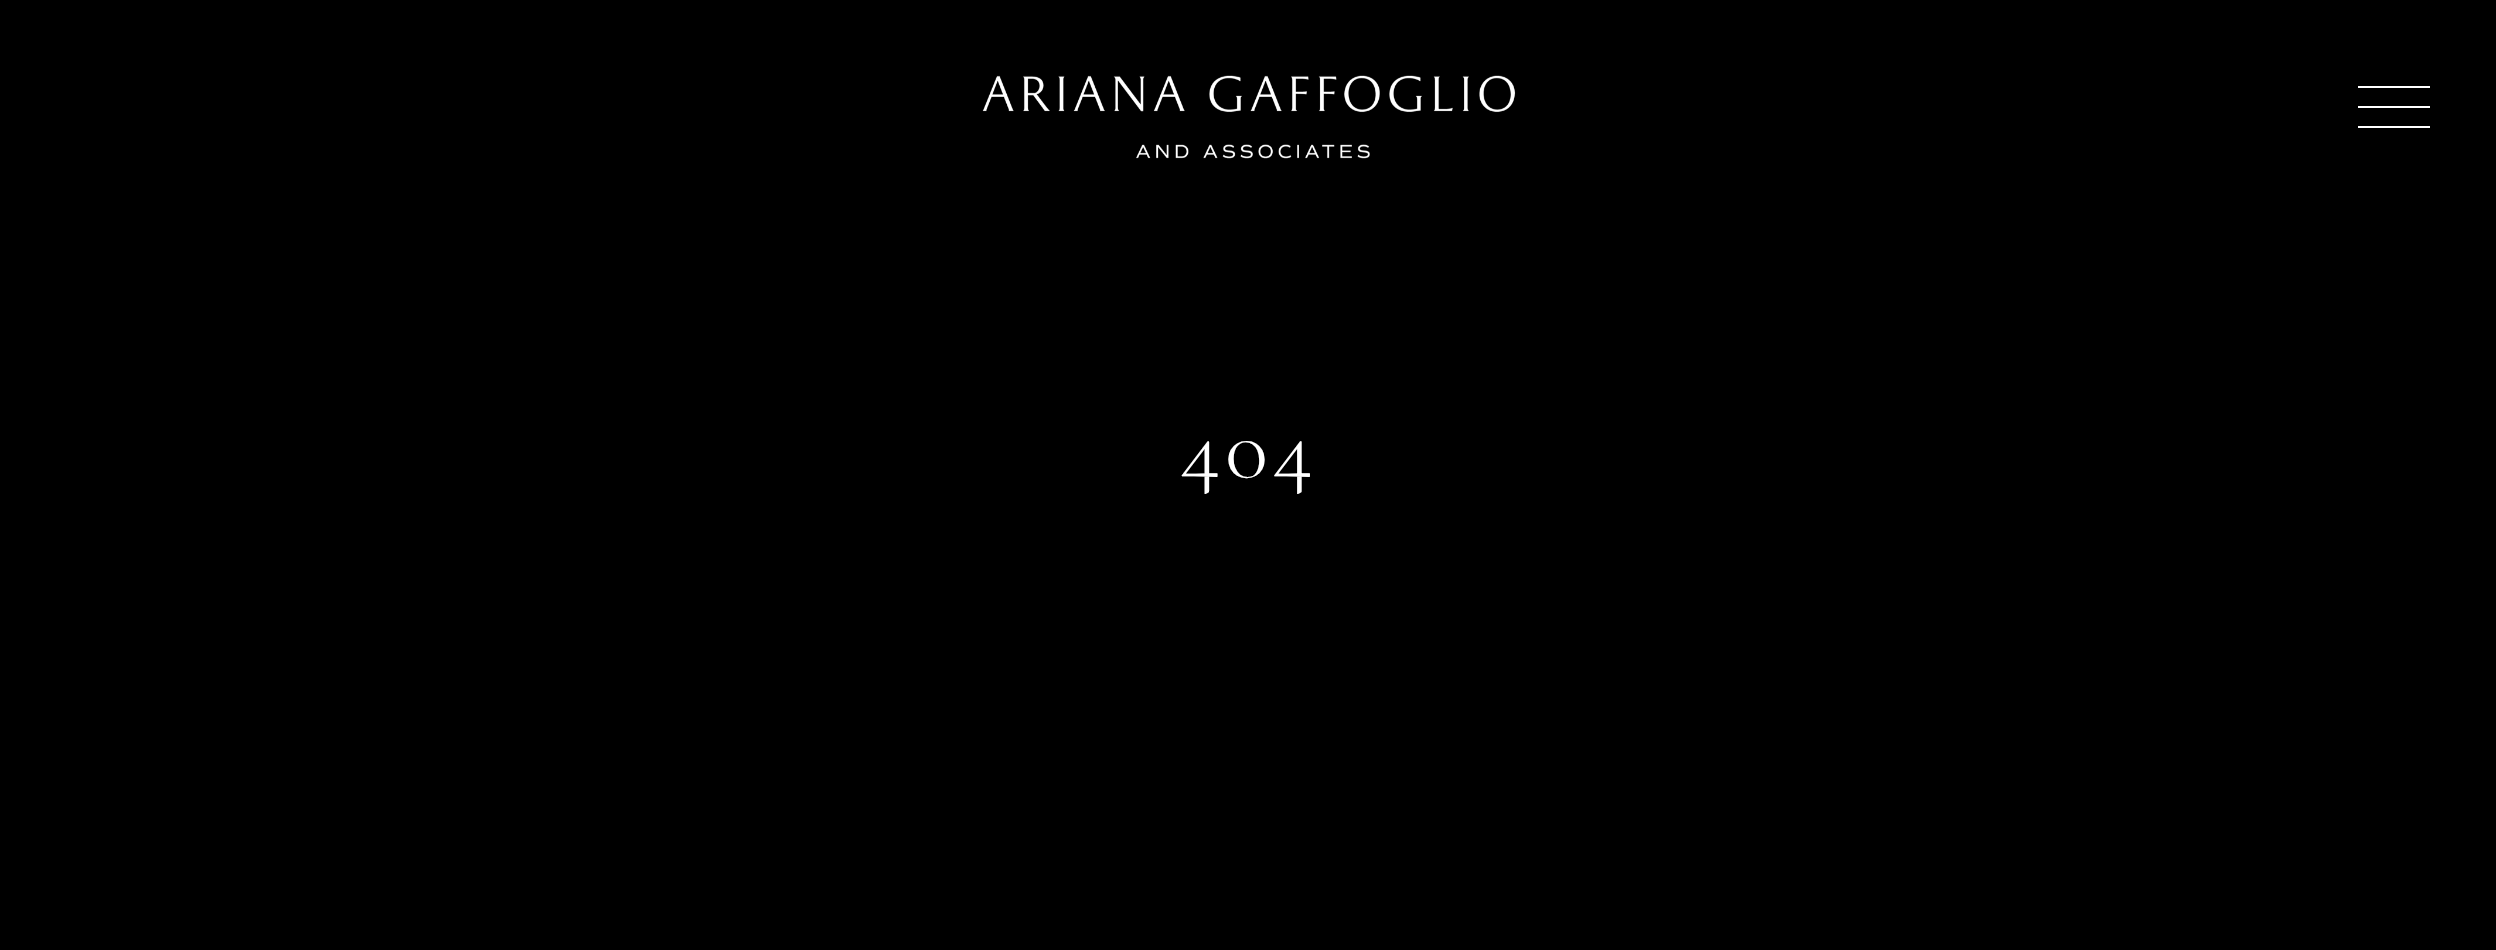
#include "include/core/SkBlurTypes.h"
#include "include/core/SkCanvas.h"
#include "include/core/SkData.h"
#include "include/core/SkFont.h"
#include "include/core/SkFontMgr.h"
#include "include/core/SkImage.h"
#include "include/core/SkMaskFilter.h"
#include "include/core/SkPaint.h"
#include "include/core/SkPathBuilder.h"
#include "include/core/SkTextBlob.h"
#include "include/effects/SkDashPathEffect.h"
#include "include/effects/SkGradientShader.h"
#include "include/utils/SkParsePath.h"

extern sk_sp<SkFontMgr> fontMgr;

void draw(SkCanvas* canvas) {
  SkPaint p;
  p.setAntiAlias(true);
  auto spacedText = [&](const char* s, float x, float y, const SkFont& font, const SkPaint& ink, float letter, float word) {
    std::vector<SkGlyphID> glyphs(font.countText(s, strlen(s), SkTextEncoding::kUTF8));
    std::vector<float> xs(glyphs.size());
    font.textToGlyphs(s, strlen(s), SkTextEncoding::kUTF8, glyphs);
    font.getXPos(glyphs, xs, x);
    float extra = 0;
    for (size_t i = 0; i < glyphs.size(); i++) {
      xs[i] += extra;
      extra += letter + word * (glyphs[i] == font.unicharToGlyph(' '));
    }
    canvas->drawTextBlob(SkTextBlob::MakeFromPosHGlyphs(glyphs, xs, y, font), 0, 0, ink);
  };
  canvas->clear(SK_ColorBLACK);
  canvas->drawImageRect(SkImages::DeferredFromEncodedData(SkData::MakeFromFileName("images/1.png")), SkRect::MakeLTRB(982, 75, 1516, 159), SkSamplingOptions());
  p.setColor(SK_ColorWHITE);
  canvas->drawRect(SkRect::MakeLTRB(2358, 106, 2430, 108), p);
  canvas->drawRect(SkRect::MakeLTRB(2358, 86, 2430, 88), p);
  canvas->drawRect(SkRect::MakeLTRB(2358, 126, 2430, 128), p);
  SkFont font1(fontMgr->matchFamilyStyle("Cormorant", SkFontStyle(300, SkFontStyle::kNormal_Width, SkFontStyle::kUpright_Slant)), 90);
  font1.setSubpixel(true);
  spacedText("404", 1180, 477, font1, p, 4.5f, 0);
}
